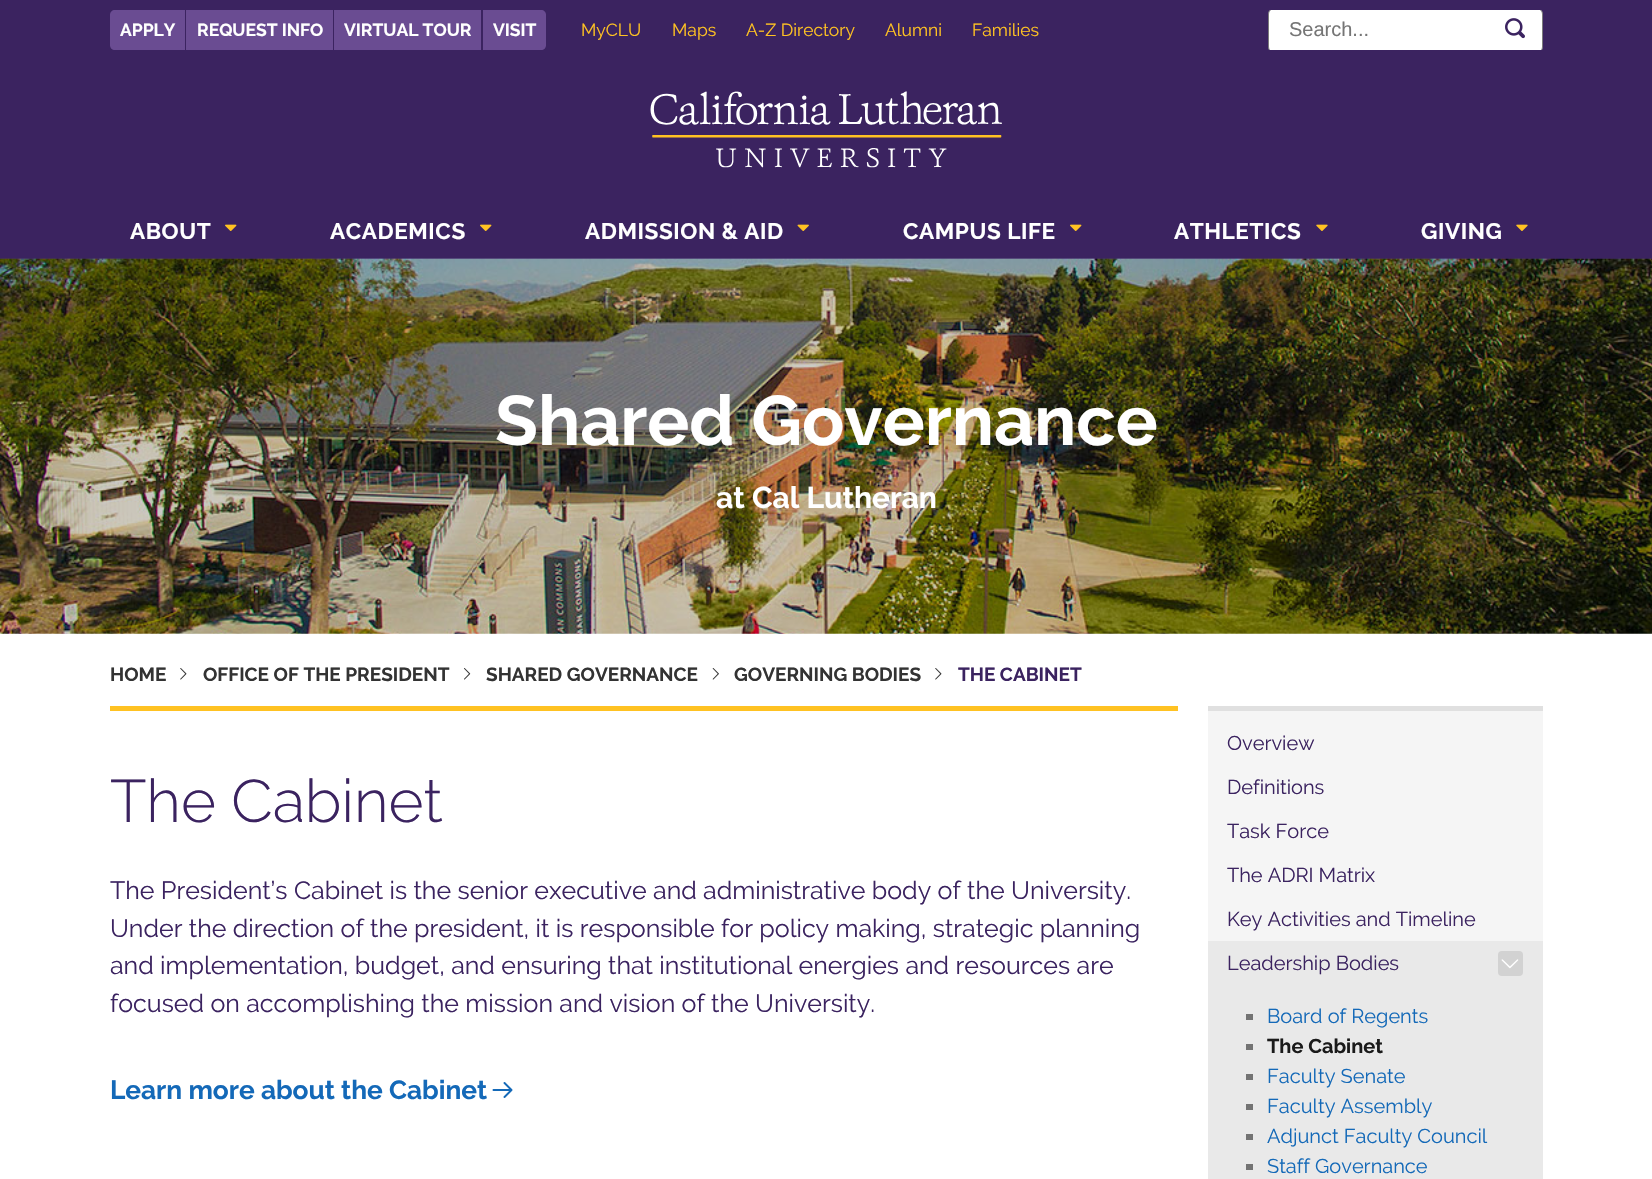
#include "include/core/SkBlurTypes.h"
#include "include/core/SkCanvas.h"
#include "include/core/SkData.h"
#include "include/core/SkFont.h"
#include "include/core/SkFontMgr.h"
#include "include/core/SkImage.h"
#include "include/core/SkMaskFilter.h"
#include "include/core/SkPaint.h"
#include "include/core/SkPathBuilder.h"
#include "include/core/SkTextBlob.h"
#include "include/effects/SkDashPathEffect.h"
#include "include/effects/SkGradientShader.h"
#include "include/utils/SkParsePath.h"

extern sk_sp<SkFontMgr> fontMgr;

void draw(SkCanvas* canvas) {
  SkPaint p;
  p.setAntiAlias(true);
  auto spacedText = [&](const char* s, float x, float y, const SkFont& font, const SkPaint& ink, float letter, float word) {
    std::vector<SkGlyphID> glyphs(font.countText(s, strlen(s), SkTextEncoding::kUTF8));
    std::vector<float> xs(glyphs.size());
    font.textToGlyphs(s, strlen(s), SkTextEncoding::kUTF8, glyphs);
    font.getXPos(glyphs, xs, x);
    float extra = 0;
    for (size_t i = 0; i < glyphs.size(); i++) {
      xs[i] += extra;
      extra += letter + word * (glyphs[i] == font.unicharToGlyph(' '));
    }
    canvas->drawTextBlob(SkTextBlob::MakeFromPosHGlyphs(glyphs, xs, y, font), 0, 0, ink);
  };
  canvas->clear(SK_ColorWHITE);
  p.setColor(SkColorSetRGB(59, 35, 96));
  canvas->drawRect(SkRect::MakeLTRB(0, 0, 1652, 259), p);
  p.setColor(SkColorSetRGB(106, 76, 146));
  canvas->drawPath(SkPathBuilder().moveTo(115, 10).lineTo(185, 10).lineTo(185, 50).lineTo(115, 50).cubicTo(112, 50, 110, 48, 110, 45).lineTo(110, 15).cubicTo(110, 12, 112, 10, 115, 10).close().detach(), p);
  canvas->drawRect(SkRect::MakeLTRB(186, 10, 333, 50), p);
  canvas->drawRect(SkRect::MakeLTRB(334, 10, 481, 50), p);
  canvas->drawPath(SkPathBuilder().moveTo(483, 10).lineTo(541, 10).cubicTo(544, 10, 546, 12, 546, 15).lineTo(546, 45).cubicTo(546, 48, 544, 50, 541, 50).lineTo(483, 50).close().detach(), p);
  canvas->save();
  canvas->clipRect(SkRect::MakeLTRB(1268, 10, 1543, 50));
  p.setColor(SK_ColorWHITE);
  canvas->drawRoundRect(SkRect::MakeLTRB(1268.5f, 8.5f, 1542.5f, 52.5f), 5.5f, 5.5f, p);
  p.setStyle(SkPaint::kStroke_Style);
  p.setStrokeWidth(1);
  p.setColor(SkColorSetRGB(124, 123, 124));
  canvas->drawRoundRect(SkRect::MakeLTRB(1268.5f, 8.5f, 1542.5f, 52.5f), 5.5f, 5.5f, p);
  canvas->restore();
  canvas->drawImageRect(SkImages::DeferredFromEncodedData(SkData::MakeFromFileName("images/1.png")), SkRect::MakeLTRB(1505, 18, 1525, 39), SkSamplingOptions());
  canvas->drawImageRect(SkImages::DeferredFromEncodedData(SkData::MakeFromFileName("images/2.png")), SkRect::MakeLTRB(650, 91, 1002, 168), SkSamplingOptions());
  canvas->drawImageRect(SkImages::DeferredFromEncodedData(SkData::MakeFromFileName("images/3.png")), SkRect::MakeLTRB(225, 224, 237, 231), SkSamplingOptions());
  canvas->drawImageRect(SkImages::DeferredFromEncodedData(SkData::MakeFromFileName("images/3.png")), SkRect::MakeLTRB(480, 224, 492, 231), SkSamplingOptions());
  canvas->drawImageRect(SkImages::DeferredFromEncodedData(SkData::MakeFromFileName("images/4.png")), SkRect::MakeLTRB(797, 224, 809, 231), SkSamplingOptions());
  canvas->drawImageRect(SkImages::DeferredFromEncodedData(SkData::MakeFromFileName("images/3.png")), SkRect::MakeLTRB(1070, 224, 1082, 231), SkSamplingOptions());
  canvas->drawImageRect(SkImages::DeferredFromEncodedData(SkData::MakeFromFileName("images/5.png")), SkRect::MakeLTRB(1316, 224, 1328, 231), SkSamplingOptions());
  canvas->drawImageRect(SkImages::DeferredFromEncodedData(SkData::MakeFromFileName("images/5.png")), SkRect::MakeLTRB(1516, 224, 1528, 231), SkSamplingOptions());
  canvas->drawImageRect(SkImages::DeferredFromEncodedData(SkData::MakeFromFileName("images/6.png")), SkRect::MakeLTRB(0, 258, 1652, 634), SkSamplingOptions());
  p.setStyle(SkPaint::kFill_Style);
  p.setColor(SkColorSetRGB(255, 194, 34));
  canvas->drawRect(SkRect::MakeLTRB(110, 706, 1178, 711), p);
  canvas->drawImageRect(SkImages::DeferredFromEncodedData(SkData::MakeFromFileName("images/7.png")), SkRect::MakeLTRB(180, 668, 187, 680), SkSamplingOptions());
  canvas->drawImageRect(SkImages::DeferredFromEncodedData(SkData::MakeFromFileName("images/8.png")), SkRect::MakeLTRB(464, 668, 471, 680), SkSamplingOptions());
  canvas->drawImageRect(SkImages::DeferredFromEncodedData(SkData::MakeFromFileName("images/9.png")), SkRect::MakeLTRB(712, 668, 719, 680), SkSamplingOptions());
  canvas->drawImageRect(SkImages::DeferredFromEncodedData(SkData::MakeFromFileName("images/7.png")), SkRect::MakeLTRB(935, 668, 942, 680), SkSamplingOptions());
  canvas->drawImageRect(SkImages::DeferredFromEncodedData(SkData::MakeFromFileName("images/10.png")), SkRect::MakeLTRB(492, 1082, 513, 1098), SkSamplingOptions());
  p.setColor(SkColorSetRGB(245, 245, 245));
  canvas->drawRect(SkRect::MakeLTRB(1208, 711, 1543, 941), p);
  p.setColor(SkColorSetRGB(224, 224, 224));
  canvas->drawRect(SkRect::MakeLTRB(1208, 706, 1543, 711), p);
  p.setColor(SkColorSetRGB(233, 233, 233));
  canvas->drawRect(SkRect::MakeLTRB(1208, 941, 1543, 1179), p);
  p.setColor(SkColorSetRGB(210, 210, 210));
  canvas->drawRoundRect(SkRect::MakeLTRB(1498, 951, 1523, 976), 4, 4, p);
  canvas->drawImageRect(SkImages::DeferredFromEncodedData(SkData::MakeFromFileName("images/11.png")), SkRect::MakeLTRB(1501, 959, 1519, 969), SkSamplingOptions());
  p.setColor(SkColorSetRGB(115, 115, 115));
  canvas->drawRect(SkRect::MakeLTRB(1246, 1014, 1253, 1020), p);
  canvas->drawRect(SkRect::MakeLTRB(1246, 1044, 1253, 1050), p);
  canvas->drawRect(SkRect::MakeLTRB(1246, 1074, 1253, 1080), p);
  canvas->drawRect(SkRect::MakeLTRB(1246, 1104, 1253, 1110), p);
  canvas->drawRect(SkRect::MakeLTRB(1246, 1134, 1253, 1140), p);
  canvas->drawRect(SkRect::MakeLTRB(1246, 1164, 1253, 1170), p);
  SkFont font1(fontMgr->matchFamilyStyle("Raleway", SkFontStyle::Bold()), 17.5f);
  font1.setSubpixel(true);
  p.setColor(SK_ColorWHITE);
  canvas->drawString("APPLY", 120, 36, font1, p);
  canvas->drawString("REQUEST INFO", 197, 36, font1, p);
  canvas->drawString("VIRTUAL TOUR", 344, 36, font1, p);
  canvas->drawString("VISIT", 493, 36, font1, p);
  SkFont font2(fontMgr->matchFamilyStyle("Raleway", SkFontStyle::Normal()), 17.5f);
  font2.setSubpixel(true);
  p.setColor(SkColorSetRGB(255, 194, 34));
  canvas->drawString("MyCLU", 581, 36, font2, p);
  canvas->drawString("Maps", 672, 36, font2, p);
  canvas->drawString("A-Z Directory", 746, 36, font2, p);
  canvas->drawString("Alumni", 885, 36, font2, p);
  canvas->drawString("Families", 972, 36, font2, p);
  SkFont font3(fontMgr->matchFamilyStyle("Liberation Sans", SkFontStyle::Normal()), 20);
  font3.setSubpixel(true);
  p.setColor(SkColorSetRGB(117, 117, 117));
  canvas->drawString("Search...", 1289, 36, font3, p);
  SkFont font4(fontMgr->matchFamilyStyle("Raleway", SkFontStyle::Bold()), 22.5f);
  font4.setSubpixel(true);
  p.setColor(SK_ColorWHITE);
  spacedText("ABOUT", 130, 239, font4, p, 0.6f, 0);
  spacedText("ACADEMICS", 330, 239, font4, p, 0.6f, 0);
  spacedText("ADMISSION & AID", 585, 239, font4, p, 0.6f, 0);
  spacedText("CAMPUS LIFE", 903, 239, font4, p, 0.6f, 0);
  spacedText("ATHLETICS", 1174, 239, font4, p, 0.6f, 0);
  spacedText("GIVING", 1421, 239, font4, p, 0.6f, 0);
  SkFont font5(fontMgr->matchFamilyStyle("Raleway", SkFontStyle::Bold()), 70);
  font5.setSubpixel(true);
  canvas->drawString("Shared Governance", 495, 445, font5, p);
  SkFont font6(fontMgr->matchFamilyStyle("Raleway", SkFontStyle::Bold()), 30);
  font6.setSubpixel(true);
  canvas->drawString("at Cal Lutheran", 716, 508, font6, p);
  SkFont font7(fontMgr->matchFamilyStyle("Raleway", SkFontStyle::Bold()), 19);
  font7.setSubpixel(true);
  p.setColor(SkColorSetRGB(51, 51, 51));
  canvas->drawString("HOME", 110, 681, font7, p);
  canvas->drawString("OFFICE OF THE PRESIDENT", 203, 681, font7, p);
  canvas->drawString("SHARED GOVERNANCE", 486, 681, font7, p);
  canvas->drawString("GOVERNING BODIES", 734, 681, font7, p);
  p.setColor(SkColorSetRGB(59, 35, 96));
  canvas->drawString("THE CABINET", 958, 681, font7, p);
  SkFont font8(fontMgr->matchFamilyStyle("Raleway", SkFontStyle(300, SkFontStyle::kNormal_Width, SkFontStyle::kUpright_Slant)), 60);
  font8.setSubpixel(true);
  canvas->drawString("The Cabinet", 110, 822, font8, p);
  SkFont font9(fontMgr->matchFamilyStyle("Raleway", SkFontStyle::Normal()), 25);
  font9.setSubpixel(true);
  canvas->drawString("The President’s Cabinet is the senior executive and administrative body of the University.", 110, 899, font9, p);
  canvas->drawString("Under the direction of the president, it is responsible for policy making, strategic planning", 110, 937, font9, p);
  canvas->drawString("and implementation, budget, and ensuring that institutional energies and resources are", 110, 974, font9, p);
  canvas->drawString("focused on accomplishing the mission and vision of the University.", 110, 1012, font9, p);
  SkFont font10(fontMgr->matchFamilyStyle("Raleway", SkFontStyle::Bold()), 26.25f);
  font10.setSubpixel(true);
  p.setColor(SkColorSetRGB(20, 105, 184));
  canvas->drawString("Learn more about the Cabinet", 110, 1099, font10, p);
  SkFont font11(fontMgr->matchFamilyStyle("Raleway", SkFontStyle::Normal()), 20);
  font11.setSubpixel(true);
  p.setColor(SkColorSetRGB(59, 35, 96));
  canvas->drawString("Overview", 1227, 750, font11, p);
  canvas->drawString("Definitions", 1227, 794, font11, p);
  canvas->drawString("Task Force", 1227, 838, font11, p);
  canvas->drawString("The ADRI Matrix", 1227, 882, font11, p);
  canvas->drawString("Key Activities and Timeline", 1227, 926, font11, p);
  canvas->drawString("Leadership Bodies", 1227, 970, font11, p);
  p.setColor(SkColorSetRGB(20, 105, 184));
  canvas->drawString("Board of Regents", 1267, 1023, font11, p);
  SkFont font12(fontMgr->matchFamilyStyle("Raleway", SkFontStyle::Bold()), 20);
  font12.setSubpixel(true);
  p.setColor(SkColorSetRGB(26, 26, 26));
  canvas->drawString("The Cabinet", 1267, 1053, font12, p);
  p.setColor(SkColorSetRGB(20, 105, 184));
  canvas->drawString("Faculty Senate", 1267, 1083, font11, p);
  canvas->drawString("Faculty Assembly", 1267, 1113, font11, p);
  canvas->drawString("Adjunct Faculty Council", 1267, 1143, font11, p);
  canvas->drawString("Staff Governance", 1267, 1173, font11, p);
}
